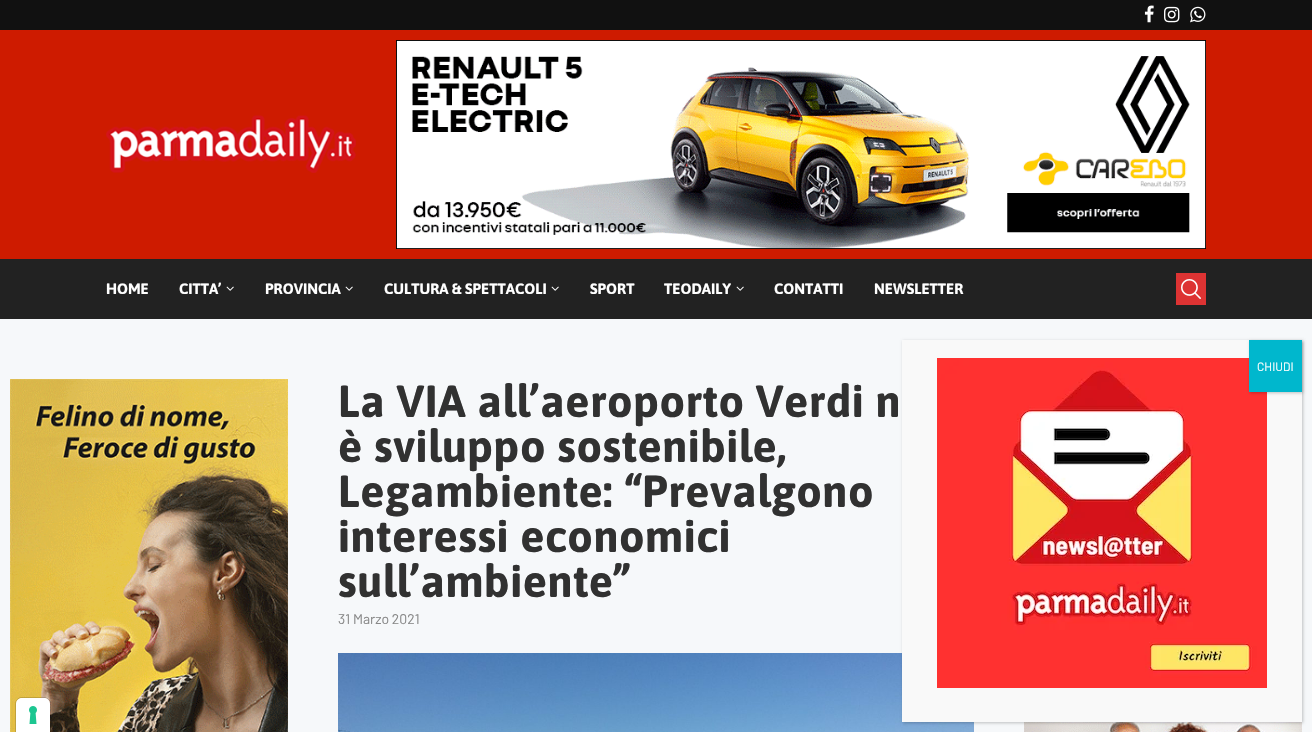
#include "include/core/SkBlurTypes.h"
#include "include/core/SkCanvas.h"
#include "include/core/SkData.h"
#include "include/core/SkFont.h"
#include "include/core/SkFontMgr.h"
#include "include/core/SkImage.h"
#include "include/core/SkMaskFilter.h"
#include "include/core/SkPaint.h"
#include "include/core/SkPathBuilder.h"
#include "include/core/SkTextBlob.h"
#include "include/effects/SkDashPathEffect.h"
#include "include/effects/SkGradientShader.h"
#include "include/utils/SkParsePath.h"

extern sk_sp<SkFontMgr> fontMgr;

void draw(SkCanvas* canvas) {
  SkPaint p;
  p.setAntiAlias(true);
  auto spacedText = [&](const char* s, float x, float y, const SkFont& font, const SkPaint& ink, float letter, float word) {
    std::vector<SkGlyphID> glyphs(font.countText(s, strlen(s), SkTextEncoding::kUTF8));
    std::vector<float> xs(glyphs.size());
    font.textToGlyphs(s, strlen(s), SkTextEncoding::kUTF8, glyphs);
    font.getXPos(glyphs, xs, x);
    float extra = 0;
    for (size_t i = 0; i < glyphs.size(); i++) {
      xs[i] += extra;
      extra += letter + word * (glyphs[i] == font.unicharToGlyph(' '));
    }
    canvas->drawTextBlob(SkTextBlob::MakeFromPosHGlyphs(glyphs, xs, y, font), 0, 0, ink);
  };
  canvas->clear(SkColorSetRGB(246, 248, 250));
  p.setColor(SkColorSetRGB(17, 17, 17));
  canvas->drawRect(SkRect::MakeLTRB(0, 0, 1312, 30), p);
  canvas->drawImageRect(SkImages::DeferredFromEncodedData(SkData::MakeFromFileName("images/1.png")), SkRect::MakeLTRB(1144, 5, 1154, 23), SkSamplingOptions());
  canvas->drawImageRect(SkImages::DeferredFromEncodedData(SkData::MakeFromFileName("images/2.png")), SkRect::MakeLTRB(1164, 6, 1180, 23), SkSamplingOptions());
  canvas->drawImageRect(SkImages::DeferredFromEncodedData(SkData::MakeFromFileName("images/3.png")), SkRect::MakeLTRB(1190, 6, 1206, 23), SkSamplingOptions());
  p.setColor(SkColorSetRGB(206, 27, 0));
  canvas->drawRect(SkRect::MakeLTRB(0, 30, 1312, 259), p);
  canvas->drawImageRect(SkImages::DeferredFromEncodedData(SkData::MakeFromFileName("images/4.png")), SkRect::MakeLTRB(106, 115, 356, 173), SkSamplingOptions());
  canvas->drawImageRect(SkImages::DeferredFromEncodedData(SkData::MakeFromFileName("images/5.png")), SkRect::MakeLTRB(396, 40, 1206, 249), SkSamplingOptions());
  p.setColor(SkColorSetRGB(34, 34, 34));
  canvas->drawRect(SkRect::MakeLTRB(0, 259, 1312, 319), p);
  canvas->drawImageRect(SkImages::DeferredFromEncodedData(SkData::MakeFromFileName("images/6.png")), SkRect::MakeLTRB(226, 286, 234, 291), SkSamplingOptions());
  canvas->drawImageRect(SkImages::DeferredFromEncodedData(SkData::MakeFromFileName("images/6.png")), SkRect::MakeLTRB(345, 286, 353, 291), SkSamplingOptions());
  canvas->drawImageRect(SkImages::DeferredFromEncodedData(SkData::MakeFromFileName("images/6.png")), SkRect::MakeLTRB(551, 286, 559, 291), SkSamplingOptions());
  canvas->drawImageRect(SkImages::DeferredFromEncodedData(SkData::MakeFromFileName("images/6.png")), SkRect::MakeLTRB(736, 286, 744, 291), SkSamplingOptions());
  p.setColor(SkColorSetRGB(221, 51, 51));
  canvas->drawRect(SkRect::MakeLTRB(1176, 273, 1206, 305), p);
  canvas->drawImageRect(SkImages::DeferredFromEncodedData(SkData::MakeFromFileName("images/7.png")), SkRect::MakeLTRB(1181, 279, 1201, 299), SkSamplingOptions());
  canvas->drawImageRect(SkImages::DeferredFromEncodedData(SkData::MakeFromFileName("images/8.png")), SkRect::MakeLTRB(10, 379, 288, 732), SkSamplingOptions());
  canvas->drawImageRect(SkImages::DeferredFromEncodedData(SkData::MakeFromFileName("images/9.png")), SkRect::MakeLTRB(338, 653, 974, 732), SkSamplingOptions());
  canvas->drawImageRect(SkImages::DeferredFromEncodedData(SkData::MakeFromFileName("images/10.png")), SkRect::MakeLTRB(1024, 722, 1302, 732), SkSamplingOptions());
  p.setColor(SkColorSetARGB(59, 2, 2, 2));
  p.setMaskFilter(SkMaskFilter::MakeBlur(kNormal_SkBlurStyle, 1.5f));
  canvas->drawRect(SkRect::MakeLTRB(903, 341, 1303, 723), p);
  p.setMaskFilter(nullptr);
  p.setColor(SkColorSetRGB(249, 249, 249));
  canvas->drawRect(SkRect::MakeLTRB(902, 340, 1302, 722), p);
  canvas->drawImageRect(SkImages::DeferredFromEncodedData(SkData::MakeFromFileName("images/11.png")), SkRect::MakeLTRB(937, 358, 1267, 688), SkSamplingOptions());
  p.setColor(SkColorSetARGB(59, 2, 2, 2));
  p.setMaskFilter(SkMaskFilter::MakeBlur(kNormal_SkBlurStyle, 1.5f));
  canvas->drawRect(SkRect::MakeLTRB(1250, 341, 1303, 393), p);
  p.setMaskFilter(nullptr);
  p.setColor(SkColorSetRGB(0, 183, 205));
  canvas->drawRect(SkRect::MakeLTRB(1249, 340, 1302, 392), p);
  p.setStyle(SkPaint::kStroke_Style);
  p.setStrokeWidth(1);
  p.setColor(SkColorSetARGB(38, 0, 0, 0));
  canvas->drawPath(SkPathBuilder().moveTo(22, 697.5f).lineTo(44, 697.5f).cubicTo(47.5f, 697.5f, 50.5f, 700.5f, 50.5f, 704).lineTo(50.5f, 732.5f).lineTo(15.5f, 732.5f).lineTo(15.5f, 704).cubicTo(15.5f, 700.5f, 18.5f, 697.5f, 22, 697.5f).close().detach(), p);
  p.setStyle(SkPaint::kFill_Style);
  p.setColor(SK_ColorWHITE);
  canvas->drawPath(SkPathBuilder().moveTo(22, 698).lineTo(44, 698).cubicTo(47.5f, 698, 50, 700.5f, 50, 704).lineTo(50, 732).lineTo(16, 732).lineTo(16, 704).cubicTo(16, 700.5f, 18.5f, 698, 22, 698).close().detach(), p);
  canvas->drawImageRect(SkImages::DeferredFromEncodedData(SkData::MakeFromFileName("images/12.png")), SkRect::MakeLTRB(29, 706, 37, 724), SkSamplingOptions());
  SkFont font1(fontMgr->matchFamilyStyle("Asap", SkFontStyle::Bold()), 15);
  font1.setSubpixel(true);
  canvas->drawString("HOME", 106, 294, font1, p);
  canvas->drawString("CITTA’", 179, 294, font1, p);
  canvas->drawString("PROVINCIA", 265, 294, font1, p);
  canvas->drawString("CULTURA & SPETTACOLI", 384, 294, font1, p);
  canvas->drawString("SPORT", 590, 294, font1, p);
  canvas->drawString("TEODAILY", 664, 294, font1, p);
  canvas->drawString("CONTATTI", 774, 294, font1, p);
  canvas->drawString("NEWSLETTER", 874, 294, font1, p);
  SkFont font2(fontMgr->matchFamilyStyle("Asap", SkFontStyle::Bold()), 45);
  font2.setSubpixel(true);
  p.setColor(SkColorSetRGB(49, 49, 49));
  spacedText("La VIA all’aeroporto Verdi n", 338, 417, font2, p, 0.5f, 0);
  spacedText("è sviluppo sostenibile,", 338, 462, font2, p, 0.5f, 0);
  spacedText("Legambiente: “Prevalgono", 338, 507, font2, p, 0.5f, 0);
  spacedText("interessi economici", 338, 552, font2, p, 0.5f, 0);
  spacedText("sull’ambiente”", 338, 597, font2, p, 0.5f, 0);
  SkFont font3(fontMgr->matchFamilyStyle("Barlow", SkFontStyle::Normal()), 14);
  font3.setSubpixel(true);
  p.setColor(SkColorSetRGB(136, 136, 136));
  canvas->drawString("31 Marzo 2021", 338, 624, font3, p);
  SkFont font4(fontMgr->matchFamilyStyle("Barlow", SkFontStyle::Normal()), 12);
  font4.setSubpixel(true);
  p.setColor(SK_ColorWHITE);
  canvas->drawString("CHIUDI", 1257, 371, font4, p);
}
